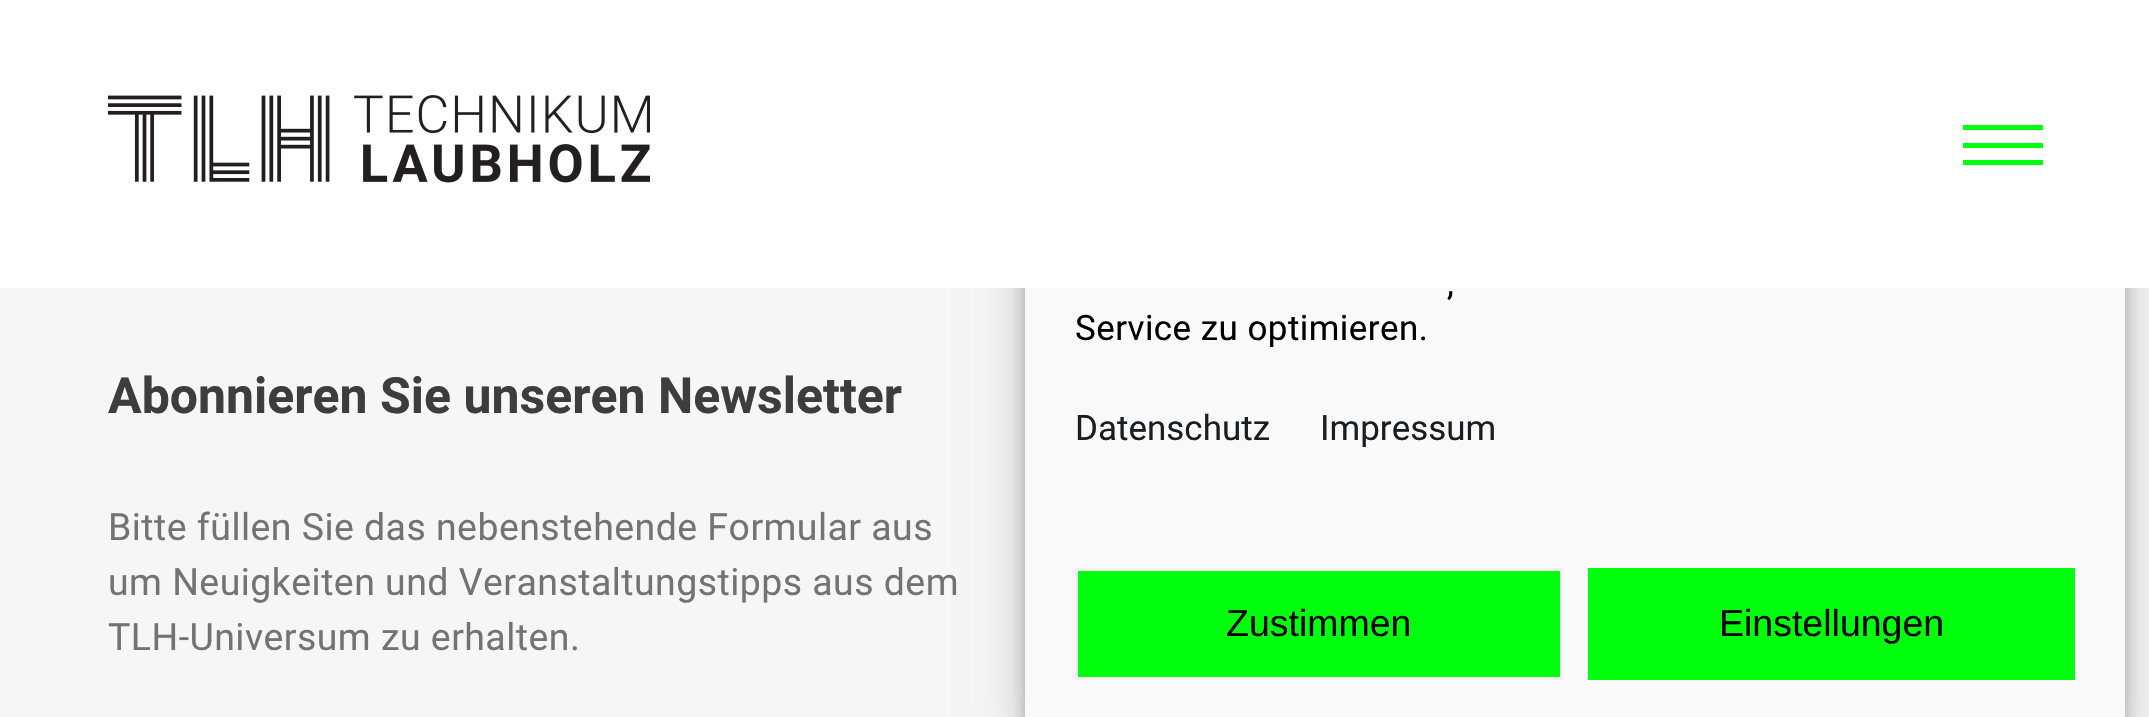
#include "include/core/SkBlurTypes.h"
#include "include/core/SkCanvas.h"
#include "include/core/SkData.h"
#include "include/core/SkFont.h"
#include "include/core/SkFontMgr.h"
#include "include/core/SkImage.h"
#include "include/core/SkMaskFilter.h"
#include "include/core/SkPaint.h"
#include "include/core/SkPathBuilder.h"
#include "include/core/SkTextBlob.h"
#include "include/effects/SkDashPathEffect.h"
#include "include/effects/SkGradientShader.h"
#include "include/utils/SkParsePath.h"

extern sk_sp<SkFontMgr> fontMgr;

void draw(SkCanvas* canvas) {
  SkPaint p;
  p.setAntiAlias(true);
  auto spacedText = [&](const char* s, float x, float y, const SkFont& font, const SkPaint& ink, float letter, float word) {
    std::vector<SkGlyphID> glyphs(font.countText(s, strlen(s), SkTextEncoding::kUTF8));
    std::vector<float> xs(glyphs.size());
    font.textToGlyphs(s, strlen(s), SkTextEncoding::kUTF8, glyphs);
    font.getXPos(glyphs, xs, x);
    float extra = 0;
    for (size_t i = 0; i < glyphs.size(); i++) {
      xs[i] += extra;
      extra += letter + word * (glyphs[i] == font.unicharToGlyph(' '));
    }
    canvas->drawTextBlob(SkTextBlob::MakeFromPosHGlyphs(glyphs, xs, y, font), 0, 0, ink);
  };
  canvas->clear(SkColorSetRGB(246, 246, 246));
  p.setColor(SkColorSetARGB(59, 0, 0, 0));
  p.setMaskFilter(SkMaskFilter::MakeBlur(kNormal_SkBlurStyle, 7.5f));
  canvas->drawRect(SkRect::MakeLTRB(1025, 133, 2125, 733), p);
  p.setMaskFilter(nullptr);
  p.setColor(SkColorSetARGB(48, 0, 0, 0));
  p.setMaskFilter(SkMaskFilter::MakeBlur(kNormal_SkBlurStyle, 25));
  canvas->drawRect(SkRect::MakeLTRB(1025, 143, 2125, 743), p);
  p.setMaskFilter(nullptr);
  p.setColor(SK_ColorWHITE);
  canvas->drawRect(SkRect::MakeLTRB(0, 0, 2149, 288), p);
  canvas->drawImageRect(SkImages::DeferredFromEncodedData(SkData::MakeFromFileName("images/1.png")), SkRect::MakeLTRB(108, 95, 650, 183), SkSamplingOptions());
  p.setColor(SkColorSetRGB(1, 254, 12));
  canvas->drawRect(SkRect::MakeLTRB(1963, 125, 2043, 130), p);
  canvas->drawRect(SkRect::MakeLTRB(1963, 143, 2043, 148), p);
  canvas->drawRect(SkRect::MakeLTRB(1963, 160, 2043, 165), p);
  p.setColor(SkColorSetRGB(249, 249, 249));
  canvas->drawRect(SkRect::MakeLTRB(1025, 288, 2125, 717), p);
  p.setColor(SkColorSetRGB(0, 255, 13));
  canvas->drawRect(SkRect::MakeLTRB(1076.5f, 569.5f, 1561.5f, 678.5f), p);
  p.setStyle(SkPaint::kStroke_Style);
  p.setStrokeWidth(3);
  p.setColor(SkColorSetRGB(241, 241, 241));
  canvas->drawRect(SkRect::MakeLTRB(1076.5f, 569.5f, 1561.5f, 678.5f), p);
  p.setStyle(SkPaint::kFill_Style);
  p.setColor(SkColorSetRGB(0, 255, 13));
  canvas->drawRect(SkRect::MakeLTRB(1588, 568, 2075, 680), p);
  SkFont font1(fontMgr->matchFamilyStyle("Roboto", SkFontStyle::Bold()), 50);
  font1.setSubpixel(true);
  p.setColor(SkColorSetRGB(61, 61, 61));
  canvas->drawString("Abonnieren Sie unseren Newsletter", 108, 413, font1, p);
  SkFont font2(fontMgr->matchFamilyStyle("Roboto", SkFontStyle::Normal()), 37.5f);
  font2.setSubpixel(true);
  p.setColor(SkColorSetRGB(115, 115, 115));
  spacedText("Bitte füllen Sie das nebenstehende Formular aus", 108, 540, font2, p, 0.45f, 0);
  spacedText("um Neuigkeiten und Veranstaltungstipps aus dem", 108, 595, font2, p, 0.45f, 0);
  spacedText("TLH-Universum zu erhalten.", 108, 650, font2, p, 0.45f, 0);
  SkFont font3(fontMgr->matchFamilyStyle("Roboto", SkFontStyle::Normal()), 35);
  font3.setSubpixel(true);
  p.setColor(SK_ColorBLACK);
  spacedText(",", 1447, 295, font3, p, 0.45f, 0);
  spacedText("Service zu optimieren.", 1075, 340, font3, p, 0.45f, 0);
  p.setColor(SkColorSetRGB(25, 30, 35));
  canvas->drawString("Datenschutz", 1075, 440, font3, p);
  canvas->drawString("Impressum", 1320, 440, font3, p);
  SkFont font4(fontMgr->matchFamilyStyle("Liberation Sans", SkFontStyle::Normal()), 37.5f);
  font4.setSubpixel(true);
  p.setColor(SK_ColorBLACK);
  canvas->drawString("Zustimmen", 1226, 636, font4, p);
  canvas->drawString("Einstellungen", 1719, 636, font4, p);
}
